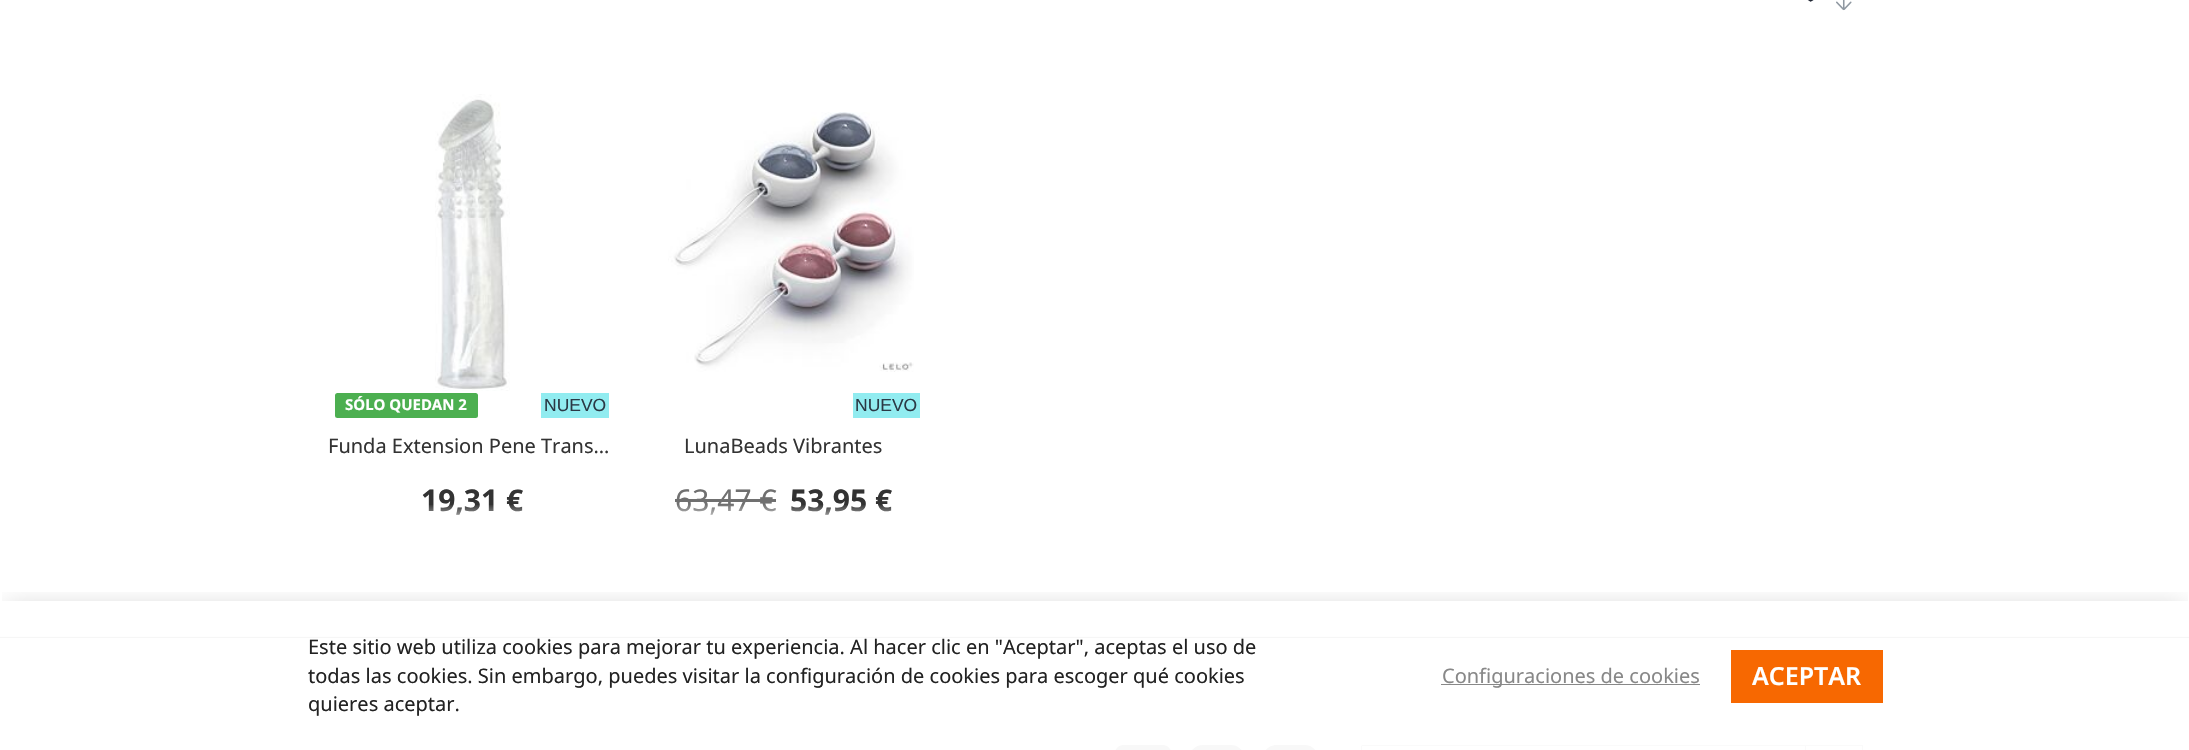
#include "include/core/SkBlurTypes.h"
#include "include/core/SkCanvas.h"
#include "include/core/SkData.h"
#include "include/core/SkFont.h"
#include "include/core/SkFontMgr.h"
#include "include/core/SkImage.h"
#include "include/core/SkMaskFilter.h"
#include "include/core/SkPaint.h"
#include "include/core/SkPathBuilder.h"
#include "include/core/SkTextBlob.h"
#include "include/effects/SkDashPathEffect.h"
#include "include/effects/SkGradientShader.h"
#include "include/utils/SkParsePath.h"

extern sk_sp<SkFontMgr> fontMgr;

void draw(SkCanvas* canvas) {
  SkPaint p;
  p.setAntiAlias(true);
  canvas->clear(SK_ColorWHITE);
  canvas->drawImageRect(SkImages::DeferredFromEncodedData(SkData::MakeFromFileName("images/1.png")), SkRect::MakeLTRB(1807, 0, 1814, 2), SkSamplingOptions());
  canvas->drawImageRect(SkImages::DeferredFromEncodedData(SkData::MakeFromFileName("images/2.png")), SkRect::MakeLTRB(1836, 0, 1852, 11), SkSamplingOptions());
  canvas->drawImageRect(SkImages::DeferredFromEncodedData(SkData::MakeFromFileName("images/3.png")), SkRect::MakeLTRB(435, 94, 510, 391), SkSamplingOptions());
  p.setColor(SkColorSetRGB(76, 175, 80));
  canvas->drawRoundRect(SkRect::MakeLTRB(335, 393, 478, 418), 2.5f, 2.5f, p);
  p.setStyle(SkPaint::kStroke_Style);
  p.setStrokeWidth(3);
  p.setColor(SkColorSetRGB(145, 236, 240));
  canvas->drawRect(SkRect::MakeLTRB(542.5f, 394.5f, 607.5f, 416.5f), p);
  p.setStyle(SkPaint::kFill_Style);
  canvas->drawRect(SkRect::MakeLTRB(544, 396, 606, 415), p);
  canvas->drawImageRect(SkImages::DeferredFromEncodedData(SkData::MakeFromFileName("images/4.png")), SkRect::MakeLTRB(668, 112, 914, 372), SkSamplingOptions());
  p.setStyle(SkPaint::kStroke_Style);
  canvas->drawRect(SkRect::MakeLTRB(854.5f, 394.5f, 918.5f, 416.5f), p);
  p.setStyle(SkPaint::kFill_Style);
  canvas->drawRect(SkRect::MakeLTRB(856, 396, 917, 415), p);
  p.setColor(SkColorSetRGB(112, 112, 112));
  canvas->drawRect(SkRect::MakeLTRB(675, 499, 776, 502), p);
  p.setColor(SkColorSetRGB(68, 68, 68));
  canvas->drawRect(SkRect::MakeLTRB(0, 637, 2189, 638), p);
  p.setColor(SkColorSetRGB(225, 225, 225));
  canvas->drawRect(SkRect::MakeLTRB(0, 636, 2189, 637), p);
  p.setColor(SkColorSetRGB(250, 250, 250));
  canvas->drawRect(SkRect::MakeLTRB(0, 638, 2189, 750), p);
  canvas->drawImageRect(SkImages::DeferredFromEncodedData(SkData::MakeFromFileName("images/5.png")), SkRect::MakeLTRB(1115, 745, 1171, 750), SkSamplingOptions());
  canvas->drawImageRect(SkImages::DeferredFromEncodedData(SkData::MakeFromFileName("images/6.png")), SkRect::MakeLTRB(1192, 745, 1242, 750), SkSamplingOptions());
  canvas->drawImageRect(SkImages::DeferredFromEncodedData(SkData::MakeFromFileName("images/7.png")), SkRect::MakeLTRB(1266, 745, 1315, 750), SkSamplingOptions());
  p.setColor(SK_ColorWHITE);
  canvas->drawRect(SkRect::MakeLTRB(1363, 746, 1805, 750), p);
  p.setStyle(SkPaint::kStroke_Style);
  p.setStrokeWidth(1);
  p.setColor(SkColorSetRGB(153, 153, 153));
  canvas->drawRoundRect(SkRect::MakeLTRB(1361.5f, 745.5f, 1805.5f, 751.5f), 0.5f, 0.5f, p);
  p.setStyle(SkPaint::kFill_Style);
  p.setColor(SK_ColorWHITE);
  canvas->drawRect(SkRect::MakeLTRB(1805.5f, 745.5f, 1862.5f, 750.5f), p);
  p.setStyle(SkPaint::kStroke_Style);
  p.setColor(SkColorSetRGB(153, 153, 153));
  canvas->drawRect(SkRect::MakeLTRB(1805.5f, 745.5f, 1862.5f, 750.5f), p);
  canvas->save();
  canvas->clipRect(SkRect::MakeLTRB(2, 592, 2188, 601));
  p.setStyle(SkPaint::kFill_Style);
  p.setColor(SkColorSetARGB(51, 0, 0, 0));
  p.setMaskFilter(SkMaskFilter::MakeBlur(kNormal_SkBlurStyle, 12.5f));
  canvas->drawRect(SkRect::MakeLTRB(6, 608, 2184, 744), p);
  p.setMaskFilter(nullptr);
  canvas->restore();
  p.setColor(SkColorSetARGB(242, 255, 255, 255));
  canvas->drawRect(SkRect::MakeLTRB(0, 601, 2189, 750), p);
  p.setColor(SkColorSetRGB(136, 136, 136));
  canvas->drawRect(SkRect::MakeLTRB(1441, 684, 1700, 685), p);
  p.setColor(SkColorSetRGB(247, 104, 1));
  canvas->drawRect(SkRect::MakeLTRB(1731, 650, 1883, 703), p);
  SkFont font1(fontMgr->matchFamilyStyle("Noto Sans", SkFontStyle::Bold()), 15);
  font1.setSubpixel(true);
  p.setColor(SK_ColorWHITE);
  canvas->drawString("SÓLO QUEDAN 2", 345, 410, font1, p);
  SkFont font2(fontMgr->matchFamilyStyle("Liberation Sans", SkFontStyle::Normal()), 17.5f);
  font2.setSubpixel(true);
  p.setColor(SkColorSetRGB(43, 57, 69));
  canvas->drawString("NUEVO", 544, 411, font2, p);
  SkFont font3(fontMgr->matchFamilyStyle("Noto Sans", SkFontStyle::Normal()), 20);
  font3.setSubpixel(true);
  p.setColor(SkColorSetRGB(51, 51, 51));
  canvas->drawString("Funda Extension Pene Trans…", 328, 453, font3, p);
  SkFont font4(fontMgr->matchFamilyStyle("Noto Sans", SkFontStyle::Bold()), 30);
  font4.setSubpixel(true);
  canvas->drawString("19,31 €", 421, 511, font4, p);
  {
    const SkColor colors[] = {SkColorSetARGB(0, 255, 255, 255), SkColorSetARGB(204, 255, 255, 255)};
    const float stops[] = {0, 1};
    const SkPoint ends[] = {{472, 504}, {472, 523}};
    p.setShader(SkGradientShader::MakeLinear(ends, colors, stops, 2, SkTileMode::kClamp));
    p.setAlpha(255);
  }
  canvas->drawRect(SkRect::MakeLTRB(428, 505, 522, 515), p);
  p.setShader(nullptr);
  p.setColor(SkColorSetRGB(43, 57, 69));
  canvas->drawString("NUEVO", 855, 411, font2, p);
  p.setColor(SkColorSetRGB(51, 51, 51));
  canvas->drawString("LunaBeads Vibrantes", 684, 453, font3, p);
  SkFont font5(fontMgr->matchFamilyStyle("Noto Sans", SkFontStyle::Normal()), 30);
  font5.setSubpixel(true);
  p.setColor(SkColorSetRGB(112, 112, 112));
  canvas->drawString("63,47 €", 675, 511, font5, p);
  p.setColor(SkColorSetRGB(51, 51, 51));
  canvas->drawString("53,95 €", 790, 511, font4, p);
  {
    const SkColor colors[] = {SkColorSetARGB(0, 255, 255, 255), SkColorSetARGB(204, 255, 255, 255)};
    const float stops[] = {0, 1};
    const SkPoint ends[] = {{783, 504}, {783, 523}};
    p.setShader(SkGradientShader::MakeLinear(ends, colors, stops, 2, SkTileMode::kClamp));
    p.setAlpha(255);
  }
  canvas->drawRect(SkRect::MakeLTRB(676, 505, 891, 515), p);
  p.setShader(nullptr);
  p.setColor(SkColorSetRGB(34, 34, 34));
  canvas->drawString("Este sitio web utiliza cookies para mejorar tu experiencia. Al hacer clic en \"Aceptar\", aceptas el uso de", 308, 654, font3, p);
  canvas->drawString("todas las cookies. Sin embargo, puedes visitar la configuración de cookies para escoger qué cookies", 308, 683, font3, p);
  canvas->drawString("quieres aceptar.", 308, 711, font3, p);
  p.setColor(SkColorSetRGB(136, 136, 136));
  canvas->drawString("Configuraciones de cookies", 1442, 683, font3, p);
  SkFont font6(fontMgr->matchFamilyStyle("Noto Sans", SkFontStyle(600, SkFontStyle::kNormal_Width, SkFontStyle::kUpright_Slant)), 25);
  font6.setSubpixel(true);
  p.setColor(SK_ColorWHITE);
  canvas->drawString("ACEPTAR", 1752, 685, font6, p);
}
